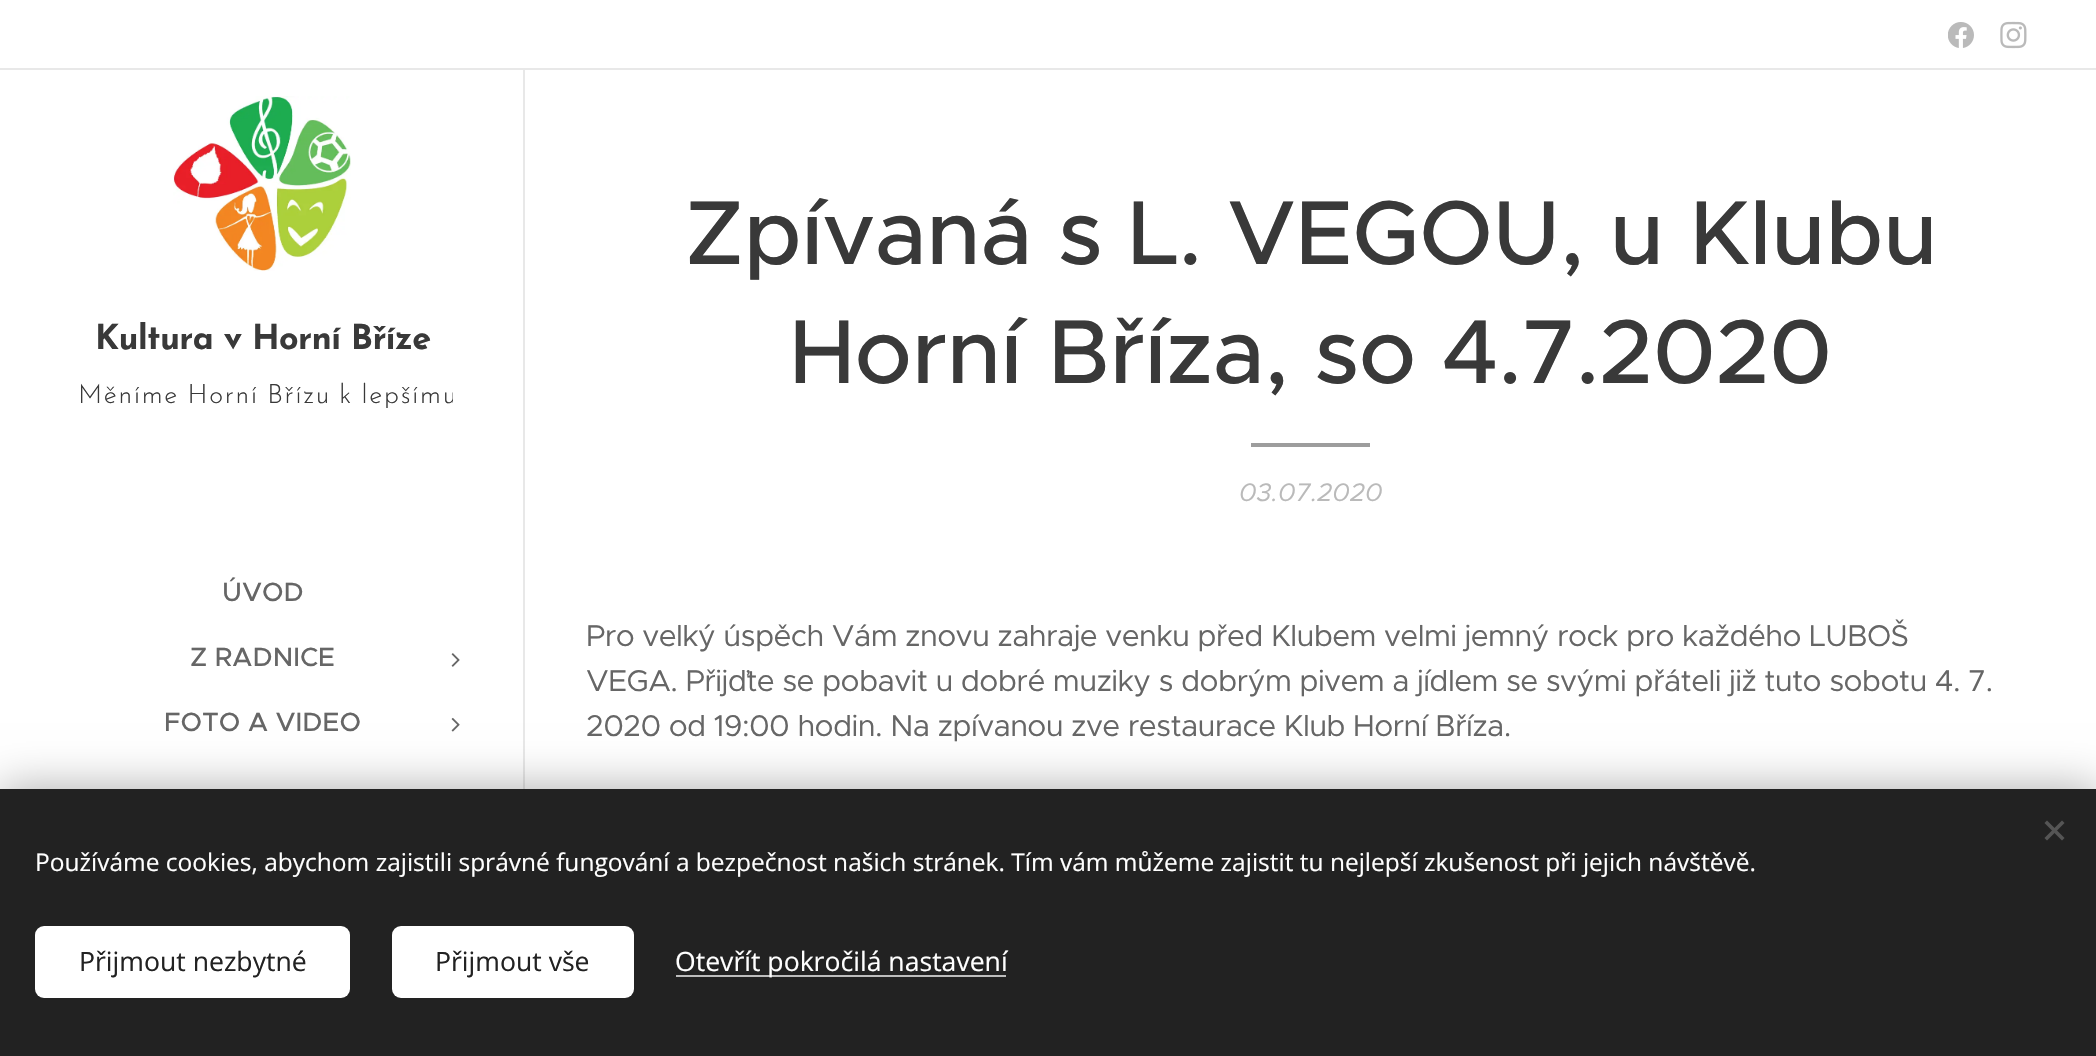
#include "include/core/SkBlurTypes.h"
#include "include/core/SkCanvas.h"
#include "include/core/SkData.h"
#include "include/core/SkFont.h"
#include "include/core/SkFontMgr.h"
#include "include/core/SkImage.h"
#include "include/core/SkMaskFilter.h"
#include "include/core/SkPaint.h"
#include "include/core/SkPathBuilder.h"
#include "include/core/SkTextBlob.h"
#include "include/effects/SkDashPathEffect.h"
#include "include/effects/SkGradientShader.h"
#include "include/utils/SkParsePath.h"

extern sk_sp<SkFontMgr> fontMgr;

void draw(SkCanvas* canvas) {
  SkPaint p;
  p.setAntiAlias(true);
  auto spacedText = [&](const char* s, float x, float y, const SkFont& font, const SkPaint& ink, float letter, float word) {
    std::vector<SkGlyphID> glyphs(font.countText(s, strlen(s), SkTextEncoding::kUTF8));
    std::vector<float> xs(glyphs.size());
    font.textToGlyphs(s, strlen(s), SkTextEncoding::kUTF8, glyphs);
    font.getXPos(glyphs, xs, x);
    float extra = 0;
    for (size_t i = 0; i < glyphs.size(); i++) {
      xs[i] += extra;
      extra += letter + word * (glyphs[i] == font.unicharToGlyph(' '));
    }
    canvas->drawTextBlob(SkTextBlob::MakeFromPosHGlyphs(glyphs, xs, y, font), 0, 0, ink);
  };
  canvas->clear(SK_ColorWHITE);
  canvas->drawImageRect(SkImages::DeferredFromEncodedData(SkData::MakeFromFileName("images/1.png")), SkRect::MakeLTRB(1948, 22, 1974, 48), SkSamplingOptions());
  canvas->drawImageRect(SkImages::DeferredFromEncodedData(SkData::MakeFromFileName("images/2.png")), SkRect::MakeLTRB(2000, 21, 2027, 49), SkSamplingOptions());
  p.setColor(SkColorSetRGB(232, 232, 232));
  canvas->drawRect(SkRect::MakeLTRB(0, 68, 2096, 70), p);
  canvas->drawImageRect(SkImages::DeferredFromEncodedData(SkData::MakeFromFileName("images/3.png")), SkRect::MakeLTRB(173, 96, 351, 271), SkSamplingOptions());
  canvas->drawImageRect(SkImages::DeferredFromEncodedData(SkData::MakeFromFileName("images/4.png")), SkRect::MakeLTRB(451, 653, 460, 667), SkSamplingOptions());
  canvas->drawImageRect(SkImages::DeferredFromEncodedData(SkData::MakeFromFileName("images/5.png")), SkRect::MakeLTRB(451, 717, 460, 732), SkSamplingOptions());
  canvas->drawRect(SkRect::MakeLTRB(523, 70, 525, 789), p);
  p.setColor(SkColorSetRGB(157, 157, 157));
  canvas->drawRect(SkRect::MakeLTRB(1251, 443, 1370, 447), p);
  p.setColor(SkColorSetARGB(84, 0, 0, 0));
  p.setMaskFilter(SkMaskFilter::MakeBlur(kNormal_SkBlurStyle, 22));
  canvas->drawRect(SkRect::MakeLTRB(0, 789, 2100, 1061), p);
  p.setMaskFilter(nullptr);
  p.setColor(SkColorSetRGB(34, 34, 34));
  canvas->drawRect(SkRect::MakeLTRB(0, 789, 2096, 1056), p);
  p.setColor(SkColorSetRGB(85, 85, 85));
  canvas->drawPath(SkPathBuilder().moveTo(2044.5f, 838).lineTo(2062, 820.5f).lineTo(2064.5f, 823).lineTo(2047, 840.5f).close().detach(), p);
  canvas->drawPath(SkPathBuilder().moveTo(2047, 820.5f).lineTo(2064.5f, 838).lineTo(2062, 840.5f).lineTo(2044.5f, 823).close().detach(), p);
  p.setColor(SK_ColorWHITE);
  canvas->drawRoundRect(SkRect::MakeLTRB(35, 926, 350, 998), 9, 9, p);
  canvas->drawRoundRect(SkRect::MakeLTRB(392, 926, 634, 998), 9, 9, p);
  p.setColor(SkColorSetRGB(189, 189, 189));
  canvas->drawRect(SkRect::MakeLTRB(676, 975, 1006, 977), p);
  SkFont font1(fontMgr->matchFamilyStyle("Josefin Sans", SkFontStyle::Bold()), 34.25f);
  font1.setSubpixel(true);
  p.setColor(SkColorSetRGB(57, 57, 57));
  spacedText("Kultura v Horní Bříze", 95, 349, font1, p, -0.6f, 0);
  canvas->save();
  canvas->clipRect(SkRect::MakeLTRB(72, 373, 453, 415));
  SkFont font2(fontMgr->matchFamilyStyle("Josefin Sans", SkFontStyle(300, SkFontStyle::kNormal_Width, SkFontStyle::kUpright_Slant)), 26.6f);
  font2.setSubpixel(true);
  spacedText("Měníme Horní Břízu k lepšímu", 78, 403, font2, p, 1.75f, -1.5f);
  canvas->restore();
  SkFont font3(fontMgr->matchFamilyStyle("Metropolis", SkFontStyle(500, SkFontStyle::kNormal_Width, SkFontStyle::kUpright_Slant)), 26.6f);
  font3.setSubpixel(true);
  p.setColor(SkColorSetRGB(102, 102, 102));
  canvas->drawString("ÚVOD", 222, 601, font3, p);
  canvas->drawString("Z RADNICE", 190, 666, font3, p);
  canvas->drawString("FOTO A VIDEO", 164, 731, font3, p);
  SkFont font4(fontMgr->matchFamilyStyle("Metropolis", SkFontStyle(500, SkFontStyle::kNormal_Width, SkFontStyle::kUpright_Slant)), 91);
  font4.setSubpixel(true);
  p.setColor(SkColorSetRGB(57, 57, 57));
  spacedText("Zpívaná s L. VEGOU, u Klubu", 685, 264, font4, p, -0.6f, 0);
  spacedText("Horní Bříza, so 4.7.2020", 789, 383, font4, p, -0.6f, 0);
  SkFont font5(fontMgr->matchFamilyStyle("Metropolis", SkFontStyle::Italic()), 25.5f);
  font5.setSubpixel(true);
  p.setColor(SkColorSetRGB(186, 186, 186));
  canvas->drawString("03.07.2020", 1239, 501, font5, p);
  SkFont font6(fontMgr->matchFamilyStyle("Metropolis", SkFontStyle::Normal()), 30.1f);
  font6.setSubpixel(true);
  p.setColor(SkColorSetRGB(102, 102, 102));
  spacedText("Pro velký úspěch Vám znovu zahraje venku před Klubem velmi jemný rock pro každého LUBOŠ", 586, 646, font6, p, -0.6f, 0);
  spacedText("VEGA. Přijďte se pobavit u dobré muziky s dobrým pivem a jídlem se svými přáteli již tuto sobotu 4. 7.", 586, 691, font6, p, -0.6f, 0);
  spacedText("2020 od 19:00 hodin. Na zpívanou zve restaurace Klub Horní Bříza.", 586, 736, font6, p, -0.6f, 0);
  SkFont font7(fontMgr->matchFamilyStyle("Open Sans", SkFontStyle::Normal()), 24.5f);
  font7.setSubpixel(true);
  p.setColor(SK_ColorWHITE);
  canvas->drawString("Používáme cookies, abychom zajistili správné fungování a bezpečnost našich stránek. Tím vám můžeme zajistit tu nejlepší zkušenost při jejich návštěvě.", 35, 871, font7, p);
  SkFont font8(fontMgr->matchFamilyStyle("Open Sans", SkFontStyle::Normal()), 26.6f);
  font8.setSubpixel(true);
  p.setColor(SkColorSetRGB(34, 34, 34));
  canvas->drawString("Přijmout nezbytné", 79, 971, font8, p);
  canvas->drawString("Přijmout vše", 435, 971, font8, p);
  p.setColor(SK_ColorWHITE);
  canvas->drawString("Otevřít pokročilá nastavení", 675, 971, font8, p);
}
